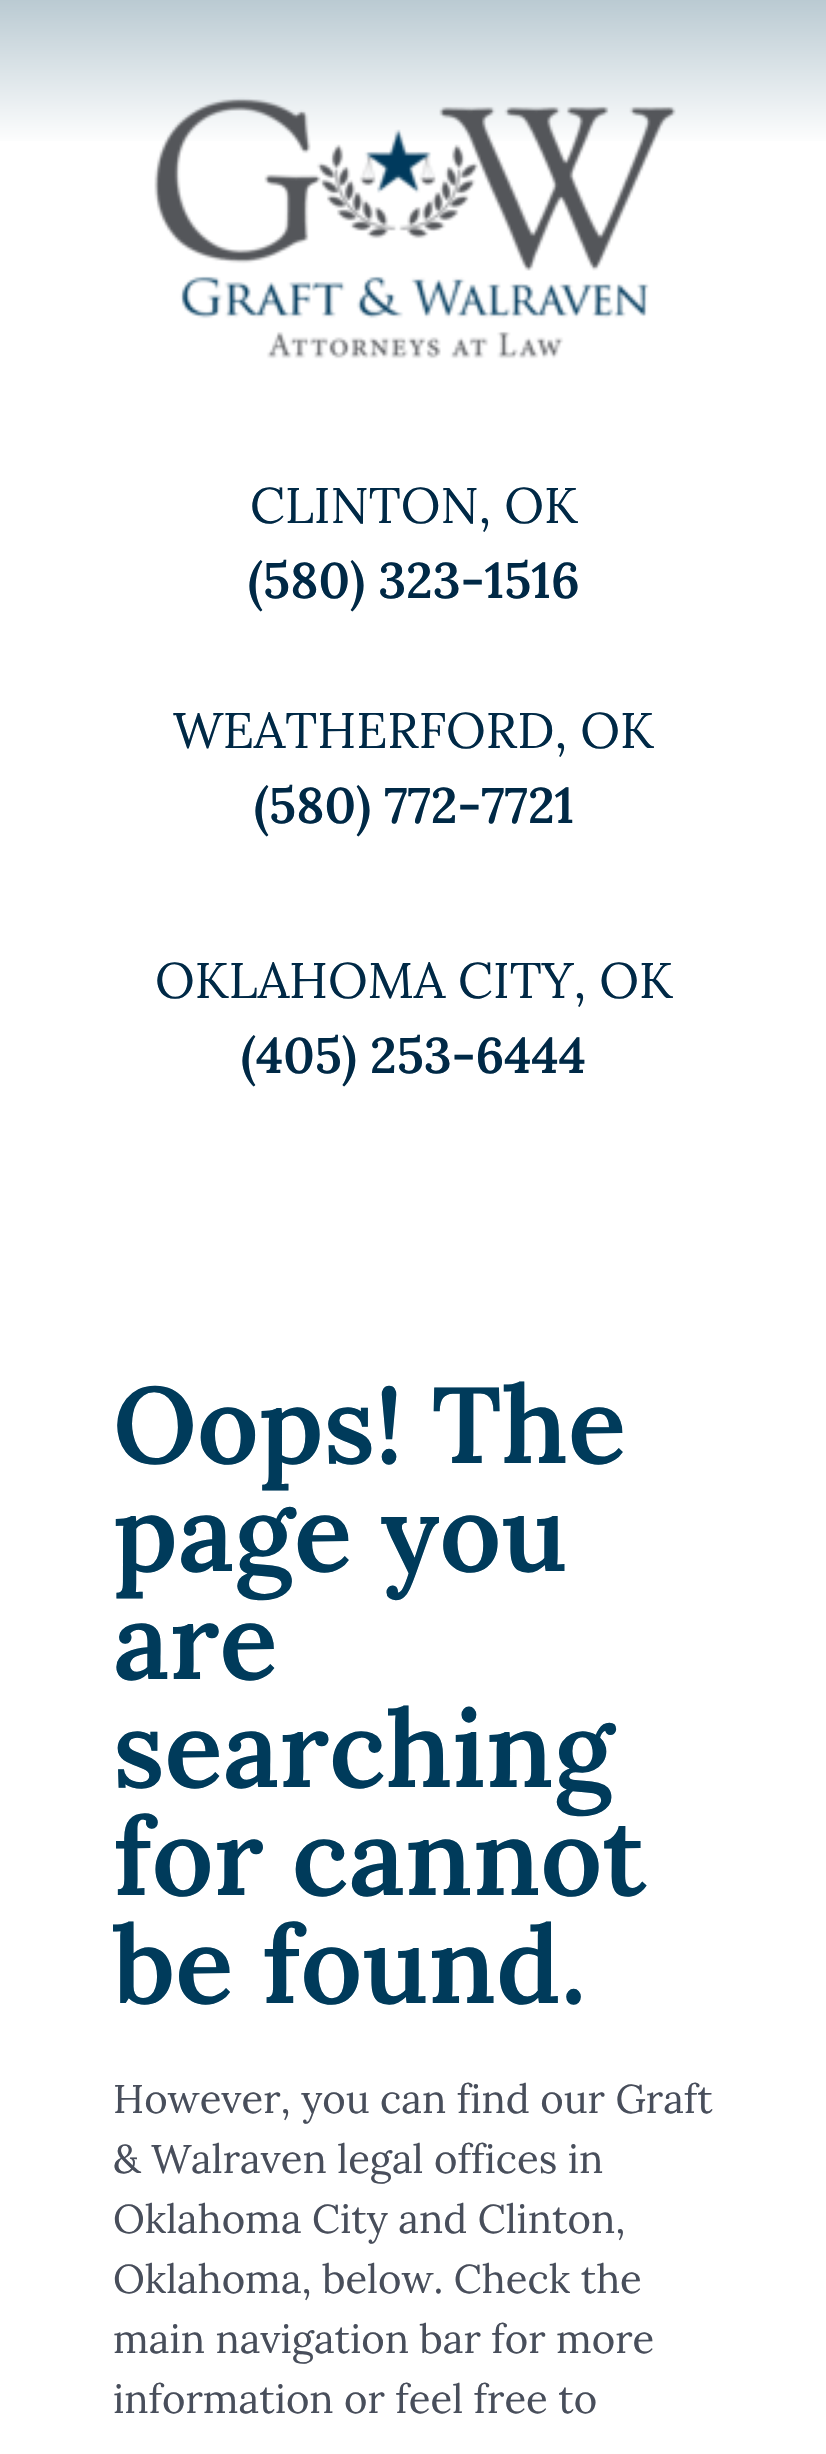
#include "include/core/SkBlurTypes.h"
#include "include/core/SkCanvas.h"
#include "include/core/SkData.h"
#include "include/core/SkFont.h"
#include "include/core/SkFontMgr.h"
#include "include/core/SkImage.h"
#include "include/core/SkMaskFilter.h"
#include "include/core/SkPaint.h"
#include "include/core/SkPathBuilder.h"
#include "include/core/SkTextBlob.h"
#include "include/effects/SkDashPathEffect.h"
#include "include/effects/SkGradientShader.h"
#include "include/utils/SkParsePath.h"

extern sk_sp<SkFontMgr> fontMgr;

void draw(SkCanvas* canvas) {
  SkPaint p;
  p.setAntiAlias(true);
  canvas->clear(SK_ColorWHITE);
  {
    const SkColor colors[] = {SkColorSetRGB(186, 202, 210), SK_ColorWHITE};
    const float stops[] = {0, 0.35f};
    const SkPoint ends[] = {{414, 0}, {414, 418}};
    p.setShader(SkGradientShader::MakeLinear(ends, colors, stops, 2, SkTileMode::kClamp));
    p.setAlpha(255);
  }
  canvas->drawRect(SkRect::MakeLTRB(0, 0, 826, 141), p);
  canvas->drawImageRect(SkImages::DeferredFromEncodedData(SkData::MakeFromFileName("images/1.png")), SkRect::MakeLTRB(154, 97, 676, 359), SkSamplingOptions());
  SkFont font1(fontMgr->matchFamilyStyle("Lora", SkFontStyle::Normal()), 50);
  font1.setSubpixel(true);
  p.setShader(nullptr);
  p.setColor(SkColorSetRGB(0, 41, 70));
  canvas->drawString("CLINTON, OK", 250, 523, font1, p);
  SkFont font2(fontMgr->matchFamilyStyle("Lora", SkFontStyle(600, SkFontStyle::kNormal_Width, SkFontStyle::kUpright_Slant)), 50);
  font2.setSubpixel(true);
  canvas->drawString("(580) 323-1516", 248, 598, font2, p);
  canvas->drawString("WEATHERFORD, OK", 173, 748, font1, p);
  canvas->drawString("(580) 772-7721", 254, 823, font2, p);
  canvas->drawString("OKLAHOMA CITY, OK", 155, 998, font1, p);
  canvas->drawString("(405) 253-6444", 241, 1073, font2, p);
  SkFont font3(fontMgr->matchFamilyStyle("Lora", SkFontStyle(600, SkFontStyle::kNormal_Width, SkFontStyle::kUpright_Slant)), 108);
  font3.setSubpixel(true);
  p.setColor(SkColorSetRGB(0, 59, 91));
  canvas->drawString("Oops! The", 113, 1463, font3, p);
  canvas->drawString("page you", 113, 1571, font3, p);
  canvas->drawString("are", 113, 1679, font3, p);
  canvas->drawString("searching", 113, 1787, font3, p);
  canvas->drawString("for cannot", 113, 1895, font3, p);
  canvas->drawString("be found.", 113, 2003, font3, p);
  SkFont font4(fontMgr->matchFamilyStyle("Lora", SkFontStyle::Normal()), 40);
  font4.setSubpixel(true);
  p.setColor(SkColorSetRGB(72, 78, 91));
  canvas->drawString("However, you can find our Graft", 113, 2113, font4, p);
  canvas->drawString("& Walraven legal offices in", 113, 2173, font4, p);
  canvas->drawString("Oklahoma City and Clinton,", 113, 2233, font4, p);
  canvas->drawString("Oklahoma, below. Check the", 113, 2293, font4, p);
  canvas->drawString("main navigation bar for more", 113, 2353, font4, p);
  canvas->drawString("information or feel free to", 113, 2413, font4, p);
}
